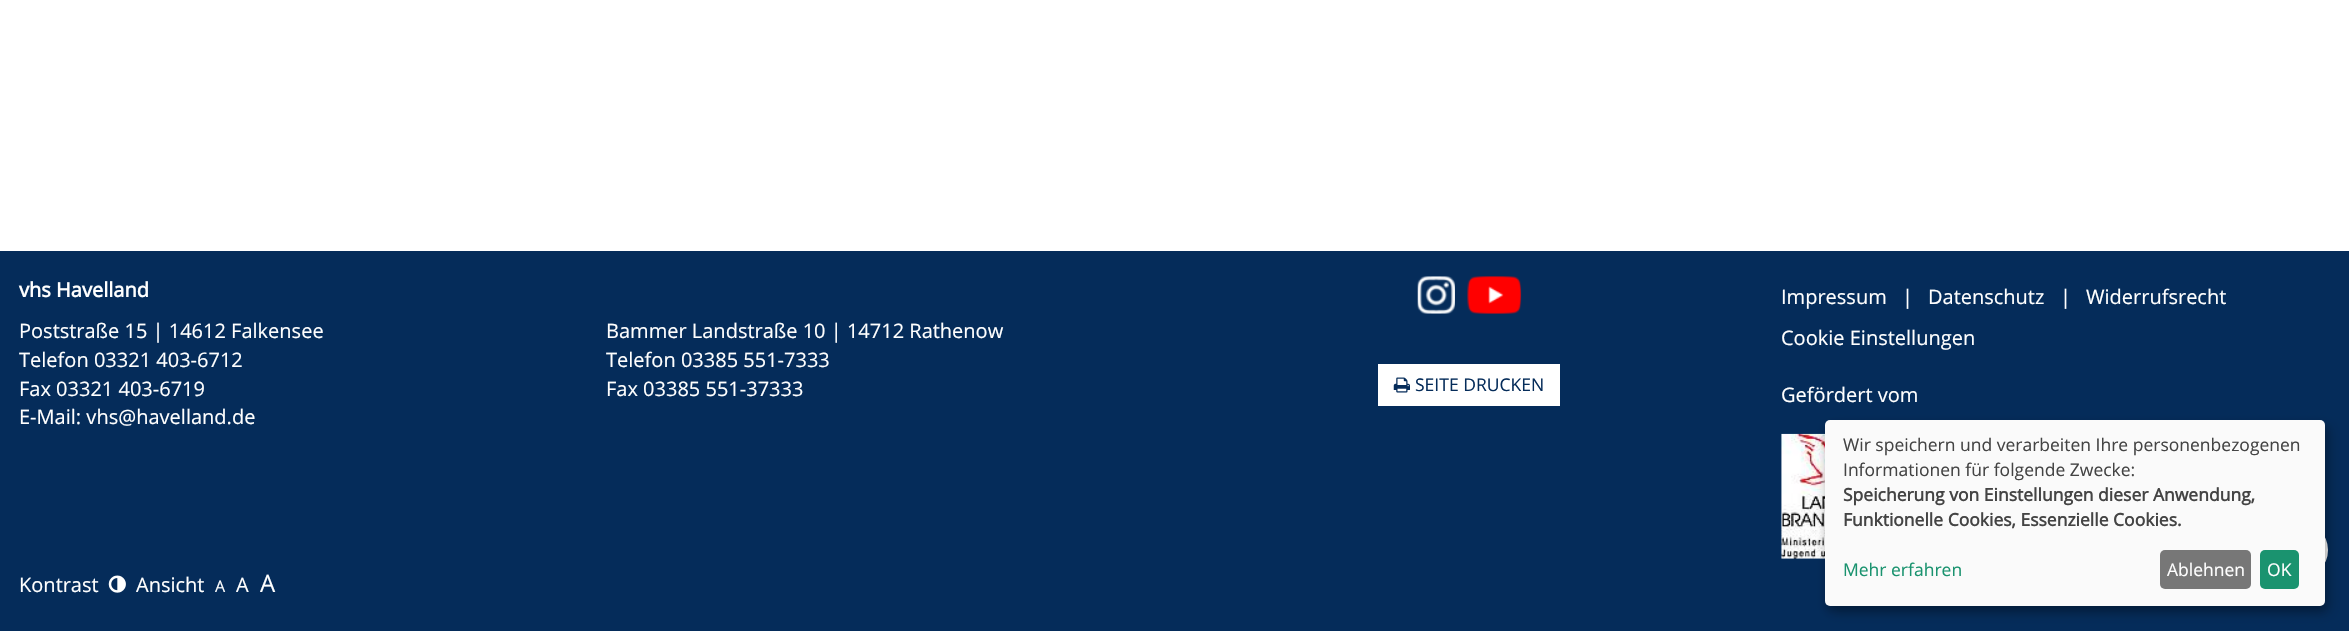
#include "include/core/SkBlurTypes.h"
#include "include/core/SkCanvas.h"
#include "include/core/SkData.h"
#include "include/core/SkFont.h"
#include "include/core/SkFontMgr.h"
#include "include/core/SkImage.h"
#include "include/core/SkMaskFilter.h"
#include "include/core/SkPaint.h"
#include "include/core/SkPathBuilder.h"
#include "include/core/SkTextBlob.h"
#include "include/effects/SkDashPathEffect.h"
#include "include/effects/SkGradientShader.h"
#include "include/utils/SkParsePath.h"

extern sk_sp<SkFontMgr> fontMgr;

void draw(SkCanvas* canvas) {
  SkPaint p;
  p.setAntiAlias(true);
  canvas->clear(SK_ColorWHITE);
  p.setColor(SkColorSetRGB(5, 44, 90));
  canvas->drawRect(SkRect::MakeLTRB(0, 251, 2349, 631), p);
  canvas->drawImageRect(SkImages::DeferredFromEncodedData(SkData::MakeFromFileName("images/1.png")), SkRect::MakeLTRB(1417, 276, 1455, 314), SkSamplingOptions());
  canvas->drawImageRect(SkImages::DeferredFromEncodedData(SkData::MakeFromFileName("images/2.png")), SkRect::MakeLTRB(1467, 276, 1522, 314), SkSamplingOptions());
  p.setColor(SK_ColorWHITE);
  canvas->drawRect(SkRect::MakeLTRB(1378, 364, 1560, 406), p);
  canvas->drawImageRect(SkImages::DeferredFromEncodedData(SkData::MakeFromFileName("images/3.png")), SkRect::MakeLTRB(1393, 377, 1410, 393), SkSamplingOptions());
  canvas->drawImageRect(SkImages::DeferredFromEncodedData(SkData::MakeFromFileName("images/4.png")), SkRect::MakeLTRB(1781, 433, 1825, 559), SkSamplingOptions());
  canvas->drawImageRect(SkImages::DeferredFromEncodedData(SkData::MakeFromFileName("images/5.png")), SkRect::MakeLTRB(108, 575, 126, 593), SkSamplingOptions());
  canvas->drawCircle(2300, 550, 29.5f, p);
  p.setStyle(SkPaint::kStroke_Style);
  p.setStrokeWidth(3);
  p.setColor(SkColorSetRGB(5, 44, 90));
  canvas->drawCircle(2300, 550, 29.5f, p);
  p.setStyle(SkPaint::kFill_Style);
  p.setColor(SkColorSetARGB(48, 0, 0, 0));
  p.setMaskFilter(SkMaskFilter::MakeBlur(kNormal_SkBlurStyle, 6));
  canvas->drawRoundRect(SkRect::MakeLTRB(1831, 426, 2331, 613), 5, 5, p);
  p.setMaskFilter(nullptr);
  p.setColor(SkColorSetARGB(51, 0, 0, 0));
  p.setMaskFilter(SkMaskFilter::MakeBlur(kNormal_SkBlurStyle, 4));
  canvas->drawRoundRect(SkRect::MakeLTRB(1825, 425, 2325, 611), 5, 5, p);
  p.setMaskFilter(nullptr);
  p.setColor(SkColorSetRGB(250, 250, 250));
  canvas->drawRoundRect(SkRect::MakeLTRB(1825, 420, 2325, 606), 5, 5, p);
  p.setColor(SkColorSetRGB(119, 119, 119));
  canvas->drawRoundRect(SkRect::MakeLTRB(2160, 550, 2251, 589), 5, 5, p);
  p.setColor(SkColorSetRGB(26, 147, 111));
  canvas->drawRoundRect(SkRect::MakeLTRB(2260, 550, 2299, 589), 5, 5, p);
  SkFont font1(fontMgr->matchFamilyStyle("Open Sans", SkFontStyle::Bold()), 20);
  font1.setSubpixel(true);
  p.setColor(SK_ColorWHITE);
  canvas->drawString("vhs Havelland", 19, 297, font1, p);
  SkFont font2(fontMgr->matchFamilyStyle("Open Sans", SkFontStyle::Normal()), 20);
  font2.setSubpixel(true);
  canvas->drawString("Poststraße 15 | 14612 Falkensee", 19, 338, font2, p);
  canvas->drawString("Telefon 03321 403-6712", 19, 367, font2, p);
  canvas->drawString("Fax 03321 403-6719", 19, 396, font2, p);
  canvas->drawString("E-Mail: vhs@havelland.de", 19, 424, font2, p);
  canvas->drawString("Bammer Landstraße 10 | 14712 Rathenow", 606, 338, font2, p);
  canvas->drawString("Telefon 03385 551-7333", 606, 367, font2, p);
  canvas->drawString("Fax 03385 551-37333", 606, 396, font2, p);
  SkFont font3(fontMgr->matchFamilyStyle("Open Sans", SkFontStyle::Normal()), 17.5f);
  font3.setSubpixel(true);
  p.setColor(SkColorSetRGB(5, 44, 90));
  canvas->drawString("SEITE DRUCKEN", 1415, 391, font3, p);
  p.setColor(SK_ColorWHITE);
  canvas->drawString("Impressum", 1781, 304, font2, p);
  canvas->drawString("|", 1902, 304, font2, p);
  canvas->drawString("Datenschutz", 1928, 304, font2, p);
  canvas->drawString("|", 2060, 304, font2, p);
  canvas->drawString("Widerrufsrecht", 2086, 304, font2, p);
  canvas->drawString("Cookie Einstellungen", 1781, 345, font2, p);
  canvas->drawString("Gefördert vom", 1781, 402, font2, p);
  canvas->drawString("Kontrast", 19, 592, font2, p);
  canvas->drawString("Ansicht", 136, 592, font2, p);
  SkFont font4(fontMgr->matchFamilyStyle("Open Sans", SkFontStyle::Normal()), 16);
  font4.setSubpixel(true);
  canvas->drawString("A", 215, 592, font4, p);
  canvas->drawString("A", 236, 592, font2, p);
  SkFont font5(fontMgr->matchFamilyStyle("Open Sans", SkFontStyle::Normal()), 24);
  font5.setSubpixel(true);
  canvas->drawString("A", 260, 592, font5, p);
  p.setColor(SkColorSetRGB(68, 68, 68));
  canvas->drawString("Wir speichern und verarbeiten Ihre personenbezogenen", 1843, 451, font3, p);
  canvas->drawString("Informationen für folgende Zwecke:", 1843, 476, font3, p);
  SkFont font6(fontMgr->matchFamilyStyle("Open Sans", SkFontStyle::Bold()), 17.5f);
  font6.setSubpixel(true);
  canvas->drawString("Speicherung von Einstellungen dieser Anwendung,", 1843, 501, font6, p);
  canvas->drawString("Funktionelle Cookies, Essenzielle Cookies.", 1843, 526, font6, p);
  p.setColor(SkColorSetRGB(26, 147, 111));
  canvas->drawString("Mehr erfahren", 1843, 576, font3, p);
  p.setColor(SK_ColorWHITE);
  canvas->drawString("Ablehnen", 2167, 576, font3, p);
  canvas->drawString("OK", 2267, 576, font3, p);
}
